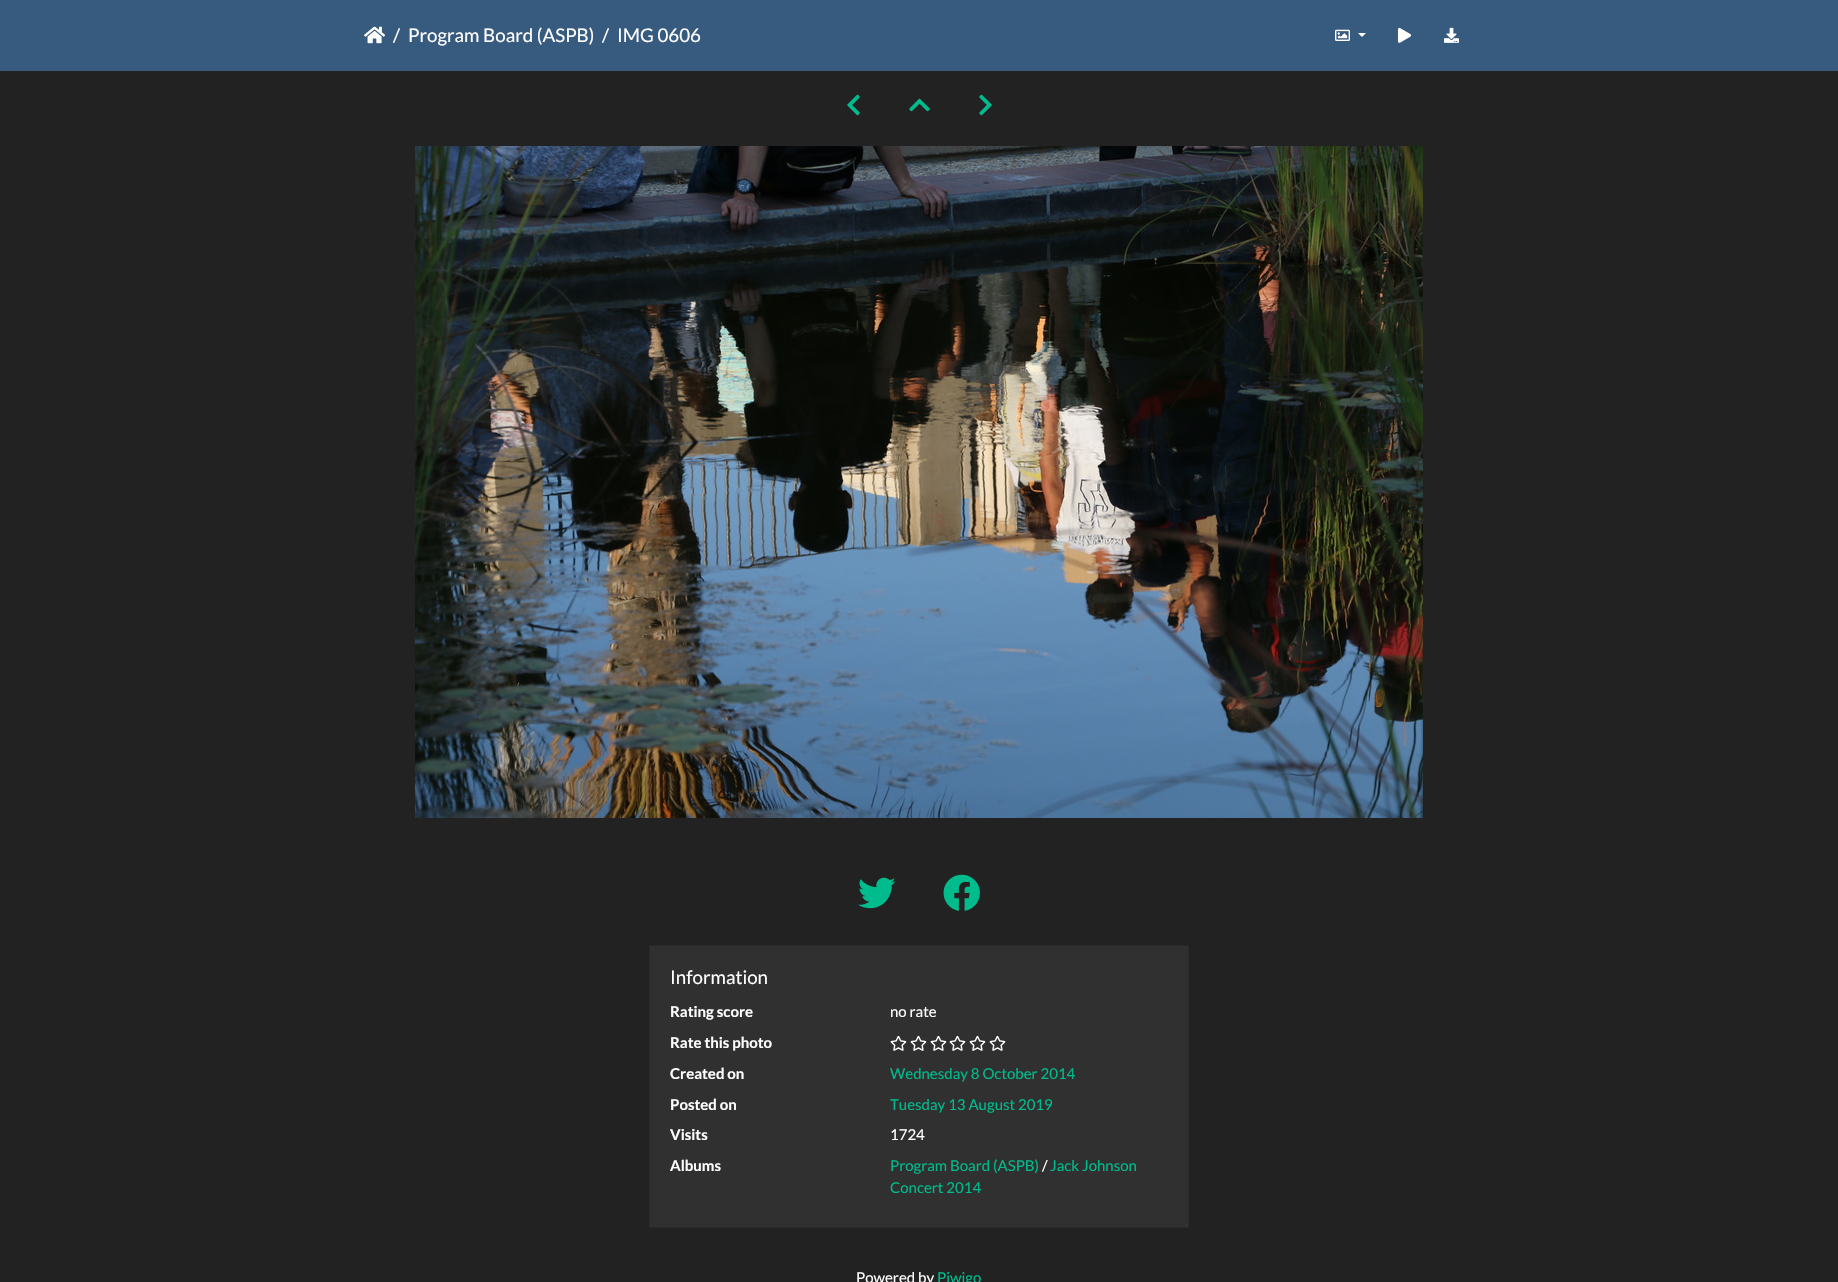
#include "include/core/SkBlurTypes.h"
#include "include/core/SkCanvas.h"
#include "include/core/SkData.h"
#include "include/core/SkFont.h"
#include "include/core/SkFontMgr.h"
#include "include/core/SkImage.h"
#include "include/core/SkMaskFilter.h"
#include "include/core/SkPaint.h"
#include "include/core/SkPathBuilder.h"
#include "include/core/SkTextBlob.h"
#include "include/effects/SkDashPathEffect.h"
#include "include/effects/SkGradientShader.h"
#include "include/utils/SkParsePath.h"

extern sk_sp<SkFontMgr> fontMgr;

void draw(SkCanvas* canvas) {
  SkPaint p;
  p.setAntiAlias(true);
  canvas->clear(SkColorSetRGB(34, 34, 34));
  p.setColor(SkColorSetRGB(55, 90, 127));
  canvas->drawRect(SkRect::MakeLTRB(0, 0, 1838, 71), p);
  canvas->drawImageRect(SkImages::DeferredFromEncodedData(SkData::MakeFromFileName("images/1.png")), SkRect::MakeLTRB(364, 26, 385, 44), SkSamplingOptions());
  canvas->drawImageRect(SkImages::DeferredFromEncodedData(SkData::MakeFromFileName("images/2.png")), SkRect::MakeLTRB(1335, 29, 1350, 41), SkSamplingOptions());
  p.setColor(SK_ColorWHITE);
  canvas->drawPath(SkPathBuilder().moveTo(1358, 33).lineTo(1366, 33).lineTo(1362, 37).close().detach(), p);
  canvas->drawImageRect(SkImages::DeferredFromEncodedData(SkData::MakeFromFileName("images/3.png")), SkRect::MakeLTRB(1398, 27, 1412, 43), SkSamplingOptions());
  canvas->drawImageRect(SkImages::DeferredFromEncodedData(SkData::MakeFromFileName("images/4.png")), SkRect::MakeLTRB(1444, 27, 1459, 43), SkSamplingOptions());
  canvas->drawImageRect(SkImages::DeferredFromEncodedData(SkData::MakeFromFileName("images/5.png")), SkRect::MakeLTRB(847, 94, 860, 116), SkSamplingOptions());
  canvas->drawImageRect(SkImages::DeferredFromEncodedData(SkData::MakeFromFileName("images/6.png")), SkRect::MakeLTRB(909, 98, 930, 112), SkSamplingOptions());
  canvas->drawImageRect(SkImages::DeferredFromEncodedData(SkData::MakeFromFileName("images/7.png")), SkRect::MakeLTRB(979, 94, 992, 116), SkSamplingOptions());
  canvas->drawImageRect(SkImages::DeferredFromEncodedData(SkData::MakeFromFileName("images/8.png")), SkRect::MakeLTRB(415, 146, 1423, 818), SkSamplingOptions());
  canvas->drawImageRect(SkImages::DeferredFromEncodedData(SkData::MakeFromFileName("images/9.png")), SkRect::MakeLTRB(858, 877, 896, 909), SkSamplingOptions());
  canvas->drawImageRect(SkImages::DeferredFromEncodedData(SkData::MakeFromFileName("images/10.png")), SkRect::MakeLTRB(943, 874, 980, 911), SkSamplingOptions());
  p.setColor(SkColorSetRGB(48, 48, 48));
  canvas->drawRoundRect(SkRect::MakeLTRB(649.5f, 945.5f, 1188.5f, 1227.5f), 1.5f, 1.5f, p);
  p.setStyle(SkPaint::kStroke_Style);
  p.setStrokeWidth(1);
  p.setColor(SkColorSetRGB(42, 42, 42));
  canvas->drawRoundRect(SkRect::MakeLTRB(649.5f, 945.5f, 1188.5f, 1227.5f), 1.5f, 1.5f, p);
  canvas->drawImageRect(SkImages::DeferredFromEncodedData(SkData::MakeFromFileName("images/11.png")), SkRect::MakeLTRB(890, 1035, 907, 1051), SkSamplingOptions());
  canvas->drawImageRect(SkImages::DeferredFromEncodedData(SkData::MakeFromFileName("images/11.png")), SkRect::MakeLTRB(910, 1035, 927, 1051), SkSamplingOptions());
  canvas->drawImageRect(SkImages::DeferredFromEncodedData(SkData::MakeFromFileName("images/11.png")), SkRect::MakeLTRB(930, 1035, 947, 1051), SkSamplingOptions());
  canvas->drawImageRect(SkImages::DeferredFromEncodedData(SkData::MakeFromFileName("images/11.png")), SkRect::MakeLTRB(949, 1035, 966, 1051), SkSamplingOptions());
  canvas->drawImageRect(SkImages::DeferredFromEncodedData(SkData::MakeFromFileName("images/11.png")), SkRect::MakeLTRB(969, 1035, 986, 1051), SkSamplingOptions());
  canvas->drawImageRect(SkImages::DeferredFromEncodedData(SkData::MakeFromFileName("images/11.png")), SkRect::MakeLTRB(989, 1035, 1006, 1051), SkSamplingOptions());
  SkFont font1(fontMgr->matchFamilyStyle("Lato", SkFontStyle::Normal()), 18.75f);
  font1.setSubpixel(true);
  p.setStyle(SkPaint::kFill_Style);
  p.setColor(SK_ColorWHITE);
  canvas->drawString("/", 393, 42, font1, p);
  canvas->drawString("Program Board (ASPB)", 408, 42, font1, p);
  canvas->drawString("/", 602, 42, font1, p);
  canvas->drawString("IMG 0606", 617, 42, font1, p);
  canvas->drawString("Information", 670, 984, font1, p);
  SkFont font2(fontMgr->matchFamilyStyle("Lato", SkFontStyle::Bold()), 15);
  font2.setSubpixel(true);
  canvas->drawString("Rating score", 670, 1017, font2, p);
  SkFont font3(fontMgr->matchFamilyStyle("Lato", SkFontStyle::Normal()), 15);
  font3.setSubpixel(true);
  canvas->drawString("no rate", 890, 1017, font3, p);
  canvas->drawString("Rate this photo", 670, 1048, font2, p);
  canvas->drawString("Created on", 670, 1079, font2, p);
  p.setColor(SkColorSetRGB(0, 188, 140));
  canvas->drawString("Wednesday 8 October 2014", 890, 1079, font3, p);
  p.setColor(SK_ColorWHITE);
  canvas->drawString("Posted on", 670, 1110, font2, p);
  p.setColor(SkColorSetRGB(0, 188, 140));
  canvas->drawString("Tuesday 13 August 2019", 890, 1110, font3, p);
  p.setColor(SK_ColorWHITE);
  canvas->drawString("Visits", 670, 1140, font2, p);
  canvas->drawString("1724", 890, 1140, font3, p);
  canvas->drawString("Albums", 670, 1171, font2, p);
  p.setColor(SkColorSetRGB(0, 188, 140));
  canvas->drawString("Program Board (ASPB)", 890, 1171, font3, p);
  p.setColor(SK_ColorWHITE);
  canvas->drawString("/", 1042, 1171, font3, p);
  p.setColor(SkColorSetRGB(0, 188, 140));
  canvas->drawString("Jack Johnson", 1050, 1171, font3, p);
  canvas->drawString("Concert 2014", 890, 1193, font3, p);
  p.setColor(SK_ColorWHITE);
  canvas->drawString("Powered by", 856, 1283, font3, p);
  p.setColor(SkColorSetRGB(0, 188, 140));
  canvas->drawString("Piwigo", 937, 1283, font3, p);
}
